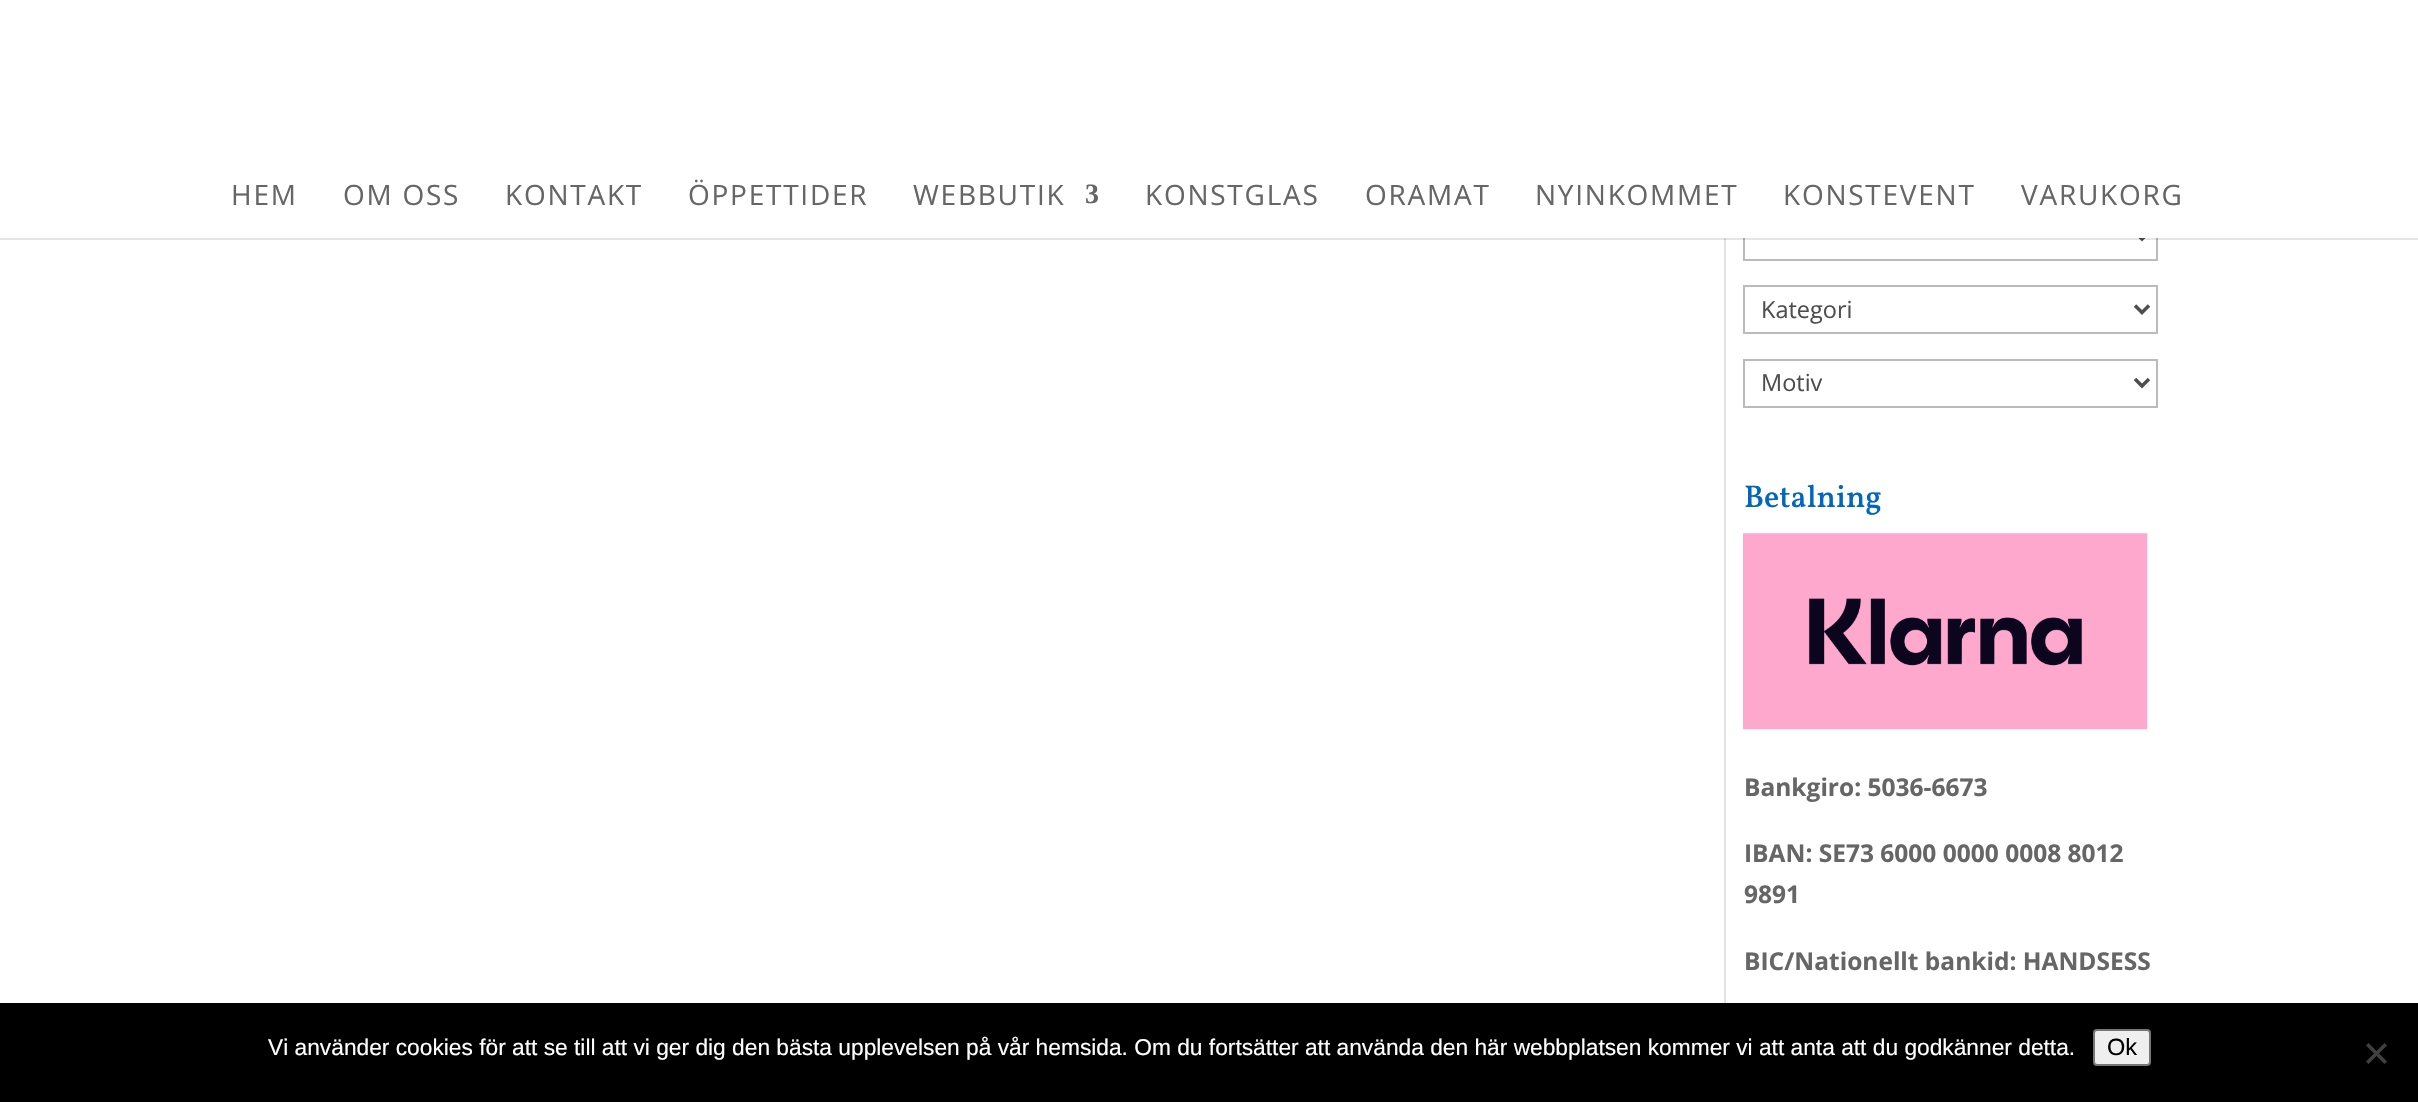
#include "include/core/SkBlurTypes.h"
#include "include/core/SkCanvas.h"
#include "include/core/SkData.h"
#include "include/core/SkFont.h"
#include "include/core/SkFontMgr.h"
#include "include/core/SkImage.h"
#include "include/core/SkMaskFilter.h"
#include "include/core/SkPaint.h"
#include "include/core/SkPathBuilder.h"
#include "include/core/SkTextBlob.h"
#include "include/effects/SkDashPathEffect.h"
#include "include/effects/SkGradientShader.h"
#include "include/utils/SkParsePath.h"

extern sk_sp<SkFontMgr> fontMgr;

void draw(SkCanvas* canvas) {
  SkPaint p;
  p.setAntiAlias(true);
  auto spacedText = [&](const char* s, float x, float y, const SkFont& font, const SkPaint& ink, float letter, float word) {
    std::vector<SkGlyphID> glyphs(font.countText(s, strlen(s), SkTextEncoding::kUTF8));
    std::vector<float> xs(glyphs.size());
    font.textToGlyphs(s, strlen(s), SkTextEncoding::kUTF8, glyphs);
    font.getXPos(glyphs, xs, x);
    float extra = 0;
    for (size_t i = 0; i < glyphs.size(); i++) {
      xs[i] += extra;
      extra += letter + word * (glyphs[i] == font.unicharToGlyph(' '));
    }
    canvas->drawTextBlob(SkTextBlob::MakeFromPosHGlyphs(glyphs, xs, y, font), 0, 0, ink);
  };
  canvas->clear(SK_ColorWHITE);
  p.setColor(SkColorSetRGB(226, 226, 226));
  canvas->drawRect(SkRect::MakeLTRB(1724, 238, 1726, 1003), p);
  p.setStyle(SkPaint::kStroke_Style);
  p.setStrokeWidth(2);
  p.setColor(SkColorSetRGB(187, 187, 187));
  canvas->drawRect(SkRect::MakeLTRB(1744, 213, 2157, 260), p);
  p.setStrokeWidth(3.5f);
  p.setColor(SkColorSetRGB(78, 78, 78));
  canvas->drawPath(SkPathBuilder().moveTo(2135, 232).lineTo(2142, 239).lineTo(2149, 232).detach(), p);
  p.setStyle(SkPaint::kFill_Style);
  p.setColor(SkColorSetARGB(26, 0, 0, 0));
  canvas->drawPath(SkPathBuilder().moveTo(0, 238).lineTo(0, 240).lineTo(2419, 240).lineTo(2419, 2).lineTo(2418, 2).lineTo(2418, 238).close().detach(), p);
  p.setColor(SK_ColorWHITE);
  canvas->drawRect(SkRect::MakeLTRB(1743, 212, 2158, 238), p);
  p.setStyle(SkPaint::kStroke_Style);
  p.setStrokeWidth(2);
  p.setColor(SkColorSetRGB(187, 187, 187));
  canvas->drawRect(SkRect::MakeLTRB(1744, 286, 2157, 333), p);
  p.setStrokeWidth(3.5f);
  p.setColor(SkColorSetRGB(78, 78, 78));
  canvas->drawPath(SkPathBuilder().moveTo(2135, 305.5f).lineTo(2142, 312.5f).lineTo(2149, 305.5f).detach(), p);
  p.setStrokeWidth(2);
  p.setColor(SkColorSetRGB(187, 187, 187));
  canvas->drawRect(SkRect::MakeLTRB(1744, 360, 2157, 407), p);
  p.setStrokeWidth(3.5f);
  p.setColor(SkColorSetRGB(78, 78, 78));
  canvas->drawPath(SkPathBuilder().moveTo(2135, 379).lineTo(2142, 386).lineTo(2149, 379).detach(), p);
  canvas->drawImageRect(SkImages::DeferredFromEncodedData(SkData::MakeFromFileName("images/1.png")), SkRect::MakeLTRB(1743, 533, 2148, 730), SkSamplingOptions());
  p.setStyle(SkPaint::kFill_Style);
  p.setColor(SK_ColorBLACK);
  canvas->drawRect(SkRect::MakeLTRB(0, 1003, 2418, 1102), p);
  p.setColor(SkColorSetRGB(239, 239, 239));
  canvas->drawRoundRect(SkRect::MakeLTRB(2094, 1030, 2150, 1065), 3, 3, p);
  p.setStyle(SkPaint::kStroke_Style);
  p.setStrokeWidth(2);
  p.setColor(SkColorSetRGB(118, 118, 118));
  canvas->drawRoundRect(SkRect::MakeLTRB(2094, 1030, 2150, 1065), 3, 3, p);
  p.setStyle(SkPaint::kFill_Style);
  p.setColor(SkColorSetRGB(64, 64, 64));
  canvas->drawPath(SkPathBuilder().moveTo(2384.5f, 1043).lineTo(2387, 1045.5f).lineTo(2368.5f, 1064).lineTo(2366, 1061.5f).close().detach(), p);
  canvas->drawPath(SkPathBuilder().moveTo(2366, 1045.5f).lineTo(2368.5f, 1043).lineTo(2387, 1061.5f).lineTo(2384.5f, 1064).close().detach(), p);
  SkFont font1(fontMgr->matchFamilyStyle("Open Sans", SkFontStyle::Normal()), 28);
  font1.setSubpixel(true);
  p.setColor(SkColorSetRGB(102, 102, 102));
  spacedText("HEM", 231, 205, font1, p, 1.75f, 0);
  spacedText("OM OSS", 343, 205, font1, p, 1.75f, 0);
  spacedText("KONTAKT", 505, 205, font1, p, 1.75f, 0);
  spacedText("ÖPPETTIDER", 688, 205, font1, p, 1.75f, 0);
  spacedText("WEBBUTIK", 913, 205, font1, p, 1.75f, 0);
  SkFont font2(fontMgr->matchFamilyStyle("Liberation Serif", SkFontStyle::Bold()), 28);
  font2.setSubpixel(true);
  spacedText("3", 1085, 203, font2, p, 1.75f, 0);
  spacedText("KONSTGLAS", 1145, 205, font1, p, 1.75f, 0);
  spacedText("ORAMAT", 1365, 205, font1, p, 1.75f, 0);
  spacedText("NYINKOMMET", 1535, 205, font1, p, 1.75f, 0);
  spacedText("KONSTEVENT", 1783, 205, font1, p, 1.75f, 0);
  spacedText("VARUKORG", 2021, 205, font1, p, 1.75f, 0);
  SkFont font3(fontMgr->matchFamilyStyle("Open Sans", SkFontStyle::Normal()), 23.5f);
  font3.setSubpixel(true);
  p.setColor(SkColorSetRGB(78, 78, 78));
  canvas->drawString("Kategori", 1761, 318, font3, p);
  canvas->drawString("Motiv", 1761, 391, font3, p);
  SkFont font4(fontMgr->matchFamilyStyle("Vollkorn", SkFontStyle(500, SkFontStyle::kNormal_Width, SkFontStyle::kUpright_Slant)), 31.5f);
  font4.setSubpixel(true);
  p.setColor(SkColorSetRGB(0, 102, 191));
  canvas->drawString("Betalning", 1744, 507, font4, p);
  SkFont font5(fontMgr->matchFamilyStyle("Open Sans", SkFontStyle::Bold()), 24.5f);
  font5.setSubpixel(true);
  p.setColor(SkColorSetRGB(102, 102, 102));
  canvas->drawString("Bankgiro: 5036-6673", 1744, 796, font5, p);
  canvas->drawString("IBAN: SE73 6000 0000 0008 8012", 1744, 862, font5, p);
  canvas->drawString("9891", 1744, 903, font5, p);
  canvas->drawString("BIC/Nationellt bankid: HANDSESS", 1744, 970, font5, p);
  SkFont font6(fontMgr->matchFamilyStyle("Liberation Sans", SkFontStyle::Normal()), 22.75f);
  font6.setSubpixel(true);
  p.setColor(SK_ColorWHITE);
  canvas->drawString("Vi använder cookies för att se till att vi ger dig den bästa upplevelsen på vår hemsida. Om du fortsätter att använda den här webbplatsen kommer vi att anta att du godkänner detta.", 268, 1055, font6, p);
  SkFont font7(fontMgr->matchFamilyStyle("Liberation Sans", SkFontStyle::Normal()), 23.5f);
  font7.setSubpixel(true);
  p.setColor(SK_ColorBLACK);
  canvas->drawString("Ok", 2107, 1055, font7, p);
}
